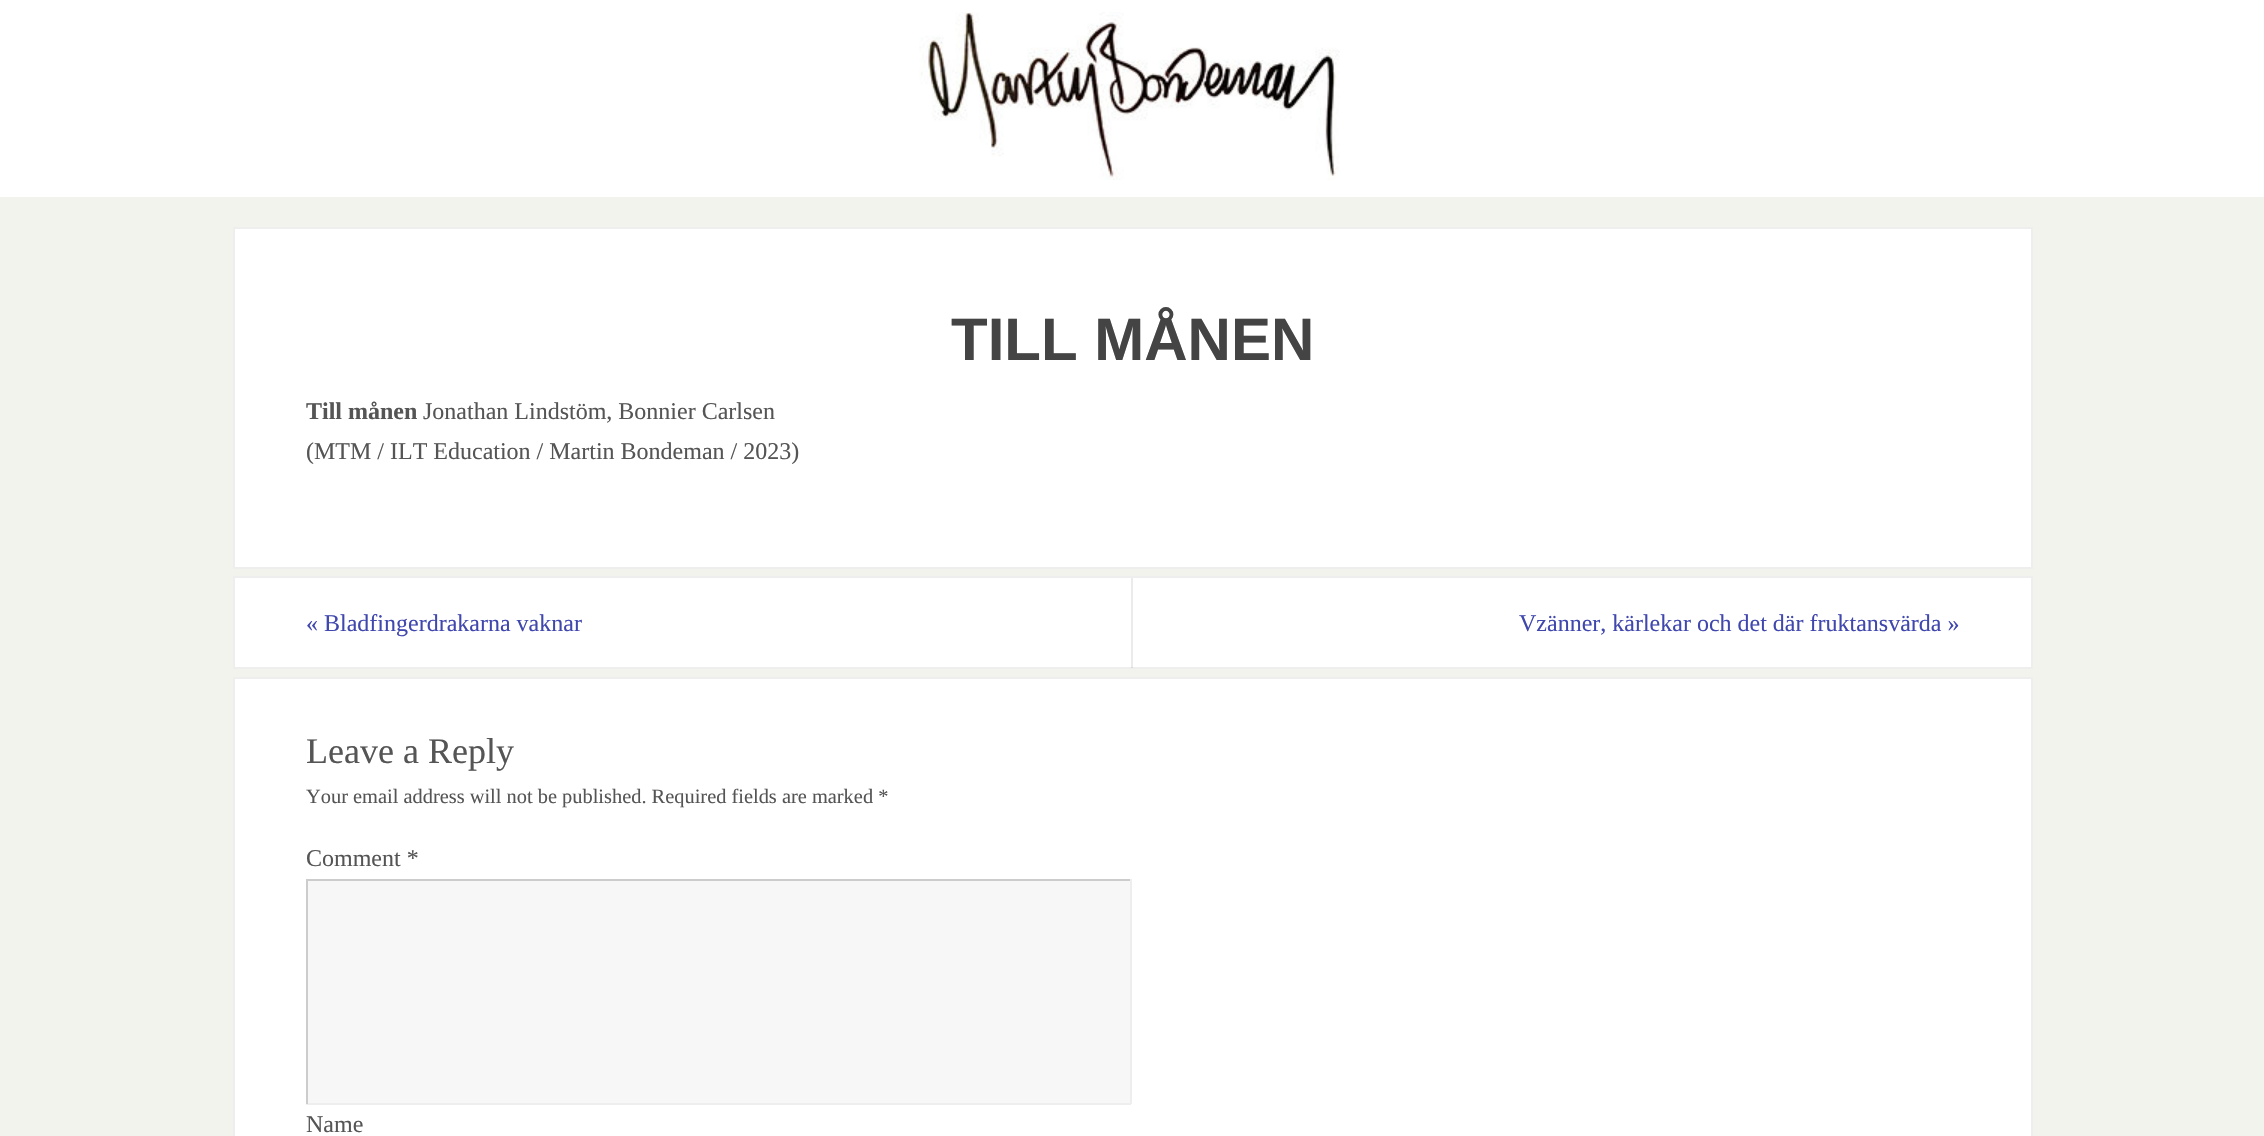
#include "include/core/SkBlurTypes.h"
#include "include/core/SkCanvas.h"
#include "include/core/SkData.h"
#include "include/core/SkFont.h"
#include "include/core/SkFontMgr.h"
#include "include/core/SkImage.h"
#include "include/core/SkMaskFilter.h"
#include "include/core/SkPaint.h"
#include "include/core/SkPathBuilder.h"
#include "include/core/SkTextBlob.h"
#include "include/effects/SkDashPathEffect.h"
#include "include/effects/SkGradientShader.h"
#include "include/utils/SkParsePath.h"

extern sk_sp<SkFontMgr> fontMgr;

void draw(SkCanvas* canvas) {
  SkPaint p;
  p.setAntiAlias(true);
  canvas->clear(SkColorSetRGB(243, 243, 238));
  p.setColor(SK_ColorWHITE);
  canvas->drawRect(SkRect::MakeLTRB(0, 0, 2264, 197), p);
  canvas->drawImageRect(SkImages::DeferredFromEncodedData(SkData::MakeFromFileName("images/1.png")), SkRect::MakeLTRB(919, 12, 1340, 180), SkSamplingOptions());
  canvas->drawRect(SkRect::MakeLTRB(234, 228, 2032, 568), p);
  p.setStyle(SkPaint::kStroke_Style);
  p.setStrokeWidth(2);
  p.setColor(SkColorSetRGB(238, 238, 238));
  canvas->drawRect(SkRect::MakeLTRB(234, 228, 2032, 568), p);
  p.setStyle(SkPaint::kFill_Style);
  p.setColor(SK_ColorWHITE);
  canvas->drawRect(SkRect::MakeLTRB(234, 577, 2032, 668), p);
  p.setStyle(SkPaint::kStroke_Style);
  p.setColor(SkColorSetRGB(238, 238, 238));
  canvas->drawRect(SkRect::MakeLTRB(234, 577, 2032, 668), p);
  p.setStyle(SkPaint::kFill_Style);
  p.setColor(SkColorSetARGB(20, 0, 0, 0));
  canvas->drawRect(SkRect::MakeLTRB(1131, 578, 1133, 668), p);
  p.setColor(SK_ColorWHITE);
  canvas->drawRect(SkRect::MakeLTRB(234, 678, 2032, 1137), p);
  p.setStyle(SkPaint::kStroke_Style);
  p.setColor(SkColorSetRGB(238, 238, 238));
  canvas->drawRect(SkRect::MakeLTRB(234, 678, 2032, 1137), p);
  p.setStyle(SkPaint::kFill_Style);
  p.setColor(SkColorSetRGB(247, 247, 247));
  canvas->drawRect(SkRect::MakeLTRB(308, 881, 1130, 1103), p);
  p.setColor(SkColorSetRGB(204, 204, 204));
  canvas->drawRect(SkRect::MakeLTRB(306, 879, 1131, 881), p);
  p.setColor(SkColorSetRGB(238, 238, 238));
  canvas->drawRect(SkRect::MakeLTRB(1130, 879, 1132, 1104), p);
  canvas->drawRect(SkRect::MakeLTRB(306, 1103, 1131, 1105), p);
  p.setColor(SkColorSetRGB(204, 204, 204));
  canvas->drawRect(SkRect::MakeLTRB(306, 879, 308, 1104), p);
  SkFont font1(fontMgr->matchFamilyStyle("Liberation Sans", SkFontStyle::Bold()), 60);
  font1.setSubpixel(true);
  p.setColor(SkColorSetRGB(68, 68, 68));
  canvas->drawString("TILL MÅNEN", 951, 360, font1, p);
  SkFont font2(fontMgr->matchFamilyStyle("Liberation Serif", SkFontStyle::Bold()), 24);
  font2.setSubpixel(true);
  p.setColor(SkColorSetRGB(85, 85, 85));
  canvas->drawString("Till månen", 306, 419, font2, p);
  SkFont font3(fontMgr->matchFamilyStyle("Liberation Serif", SkFontStyle::Normal()), 24);
  font3.setSubpixel(true);
  canvas->drawString("Jonathan Lindstöm, Bonnier Carlsen", 423, 419, font3, p);
  canvas->drawString("(MTM / ILT Education / Martin Bondeman / 2023)", 306, 459, font3, p);
  p.setColor(SkColorSetRGB(64, 71, 173));
  canvas->drawString("« Bladfingerdrakarna vaknar", 306, 631, font3, p);
  canvas->drawString("Vzänner, kärlekar och det där fruktansvärda »", 1519, 631, font3, p);
  SkFont font4(fontMgr->matchFamilyStyle("Liberation Serif", SkFontStyle::Normal()), 36);
  font4.setSubpixel(true);
  p.setColor(SkColorSetRGB(85, 85, 85));
  canvas->drawString("Leave a Reply", 306, 763, font4, p);
  SkFont font5(fontMgr->matchFamilyStyle("Liberation Serif", SkFontStyle::Normal()), 20.4f);
  font5.setSubpixel(true);
  canvas->drawString("Your email address will not be published. Required fields are marked *", 306, 803, font5, p);
  canvas->drawString("Comment *", 306, 866, font3, p);
  canvas->drawString("Name", 306, 1132, font3, p);
}
